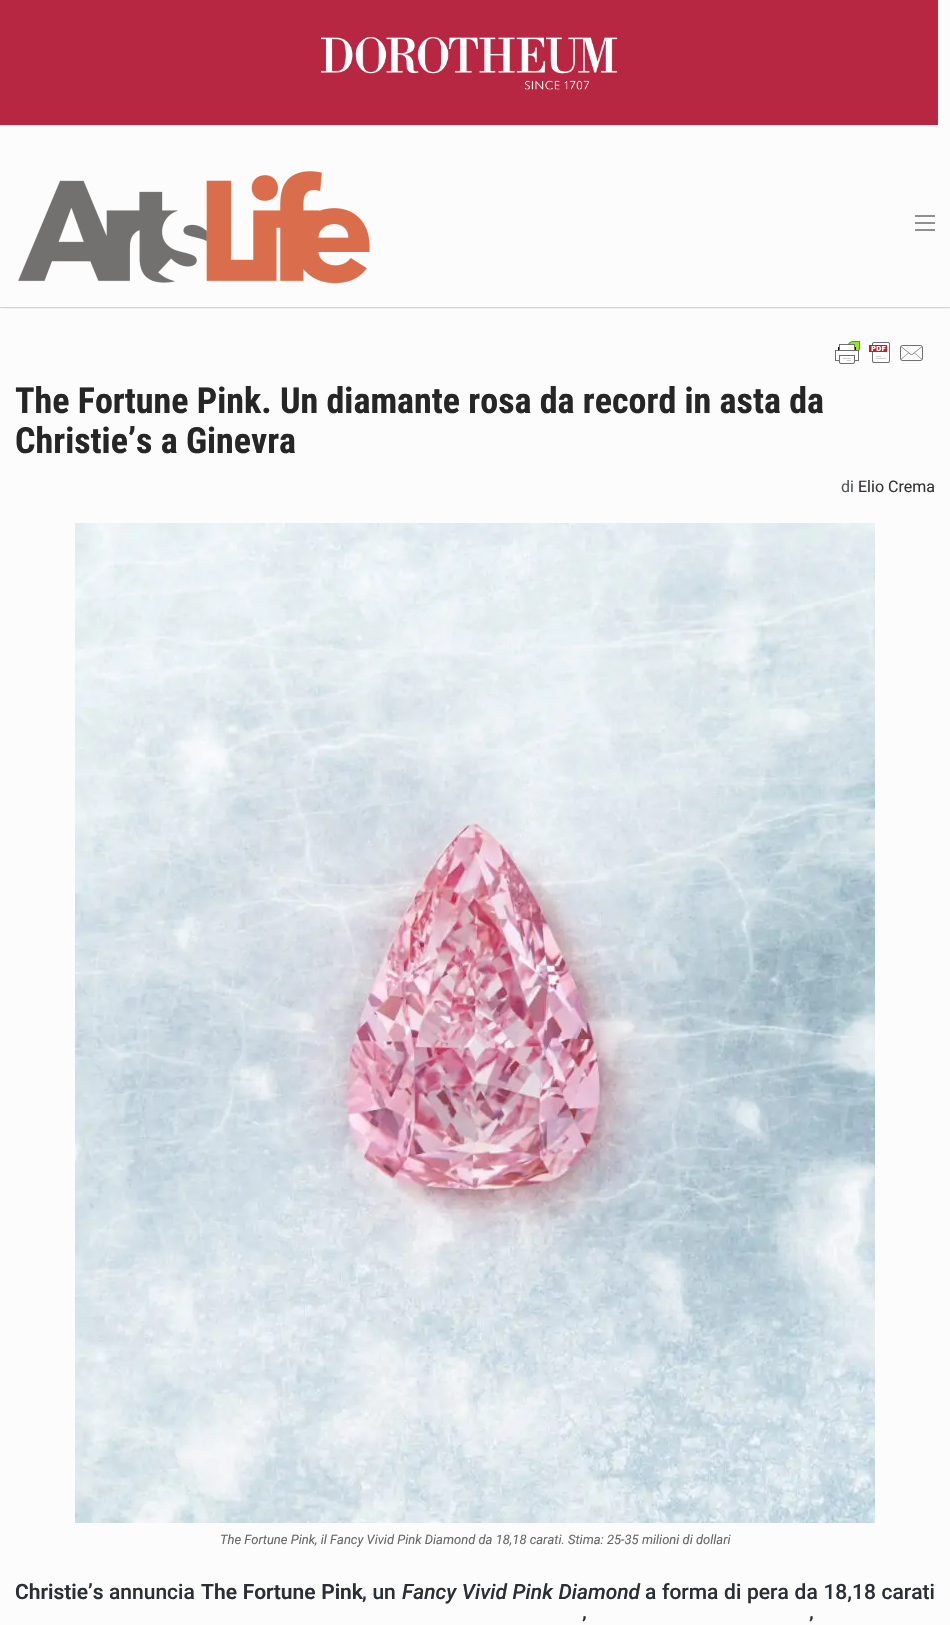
#include "include/core/SkBlurTypes.h"
#include "include/core/SkCanvas.h"
#include "include/core/SkData.h"
#include "include/core/SkFont.h"
#include "include/core/SkFontMgr.h"
#include "include/core/SkImage.h"
#include "include/core/SkMaskFilter.h"
#include "include/core/SkPaint.h"
#include "include/core/SkPathBuilder.h"
#include "include/core/SkTextBlob.h"
#include "include/effects/SkDashPathEffect.h"
#include "include/effects/SkGradientShader.h"
#include "include/utils/SkParsePath.h"

extern sk_sp<SkFontMgr> fontMgr;

void draw(SkCanvas* canvas) {
  SkPaint p;
  p.setAntiAlias(true);
  auto spacedText = [&](const char* s, float x, float y, const SkFont& font, const SkPaint& ink, float letter, float word) {
    std::vector<SkGlyphID> glyphs(font.countText(s, strlen(s), SkTextEncoding::kUTF8));
    std::vector<float> xs(glyphs.size());
    font.textToGlyphs(s, strlen(s), SkTextEncoding::kUTF8, glyphs);
    font.getXPos(glyphs, xs, x);
    float extra = 0;
    for (size_t i = 0; i < glyphs.size(); i++) {
      xs[i] += extra;
      extra += letter + word * (glyphs[i] == font.unicharToGlyph(' '));
    }
    canvas->drawTextBlob(SkTextBlob::MakeFromPosHGlyphs(glyphs, xs, y, font), 0, 0, ink);
  };
  canvas->clear(SkColorSetRGB(252, 252, 252));
  canvas->drawImageRect(SkImages::DeferredFromEncodedData(SkData::MakeFromFileName("images/1.png")), SkRect::MakeLTRB(0, 0, 938, 125), SkSamplingOptions());
  p.setColor(SkColorSetRGB(227, 227, 227));
  canvas->drawRect(SkRect::MakeLTRB(0, 307, 950, 308), p);
  canvas->save();
  canvas->clipRect(SkRect::MakeLTRB(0, 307, 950, 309));
  p.setColor(SkColorSetARGB(28, 0, 0, 0));
  p.setMaskFilter(SkMaskFilter::MakeBlur(kNormal_SkBlurStyle, 1.5f));
  canvas->drawRect(SkRect::MakeLTRB(0, 146, 950, 308), p);
  p.setMaskFilter(nullptr);
  canvas->restore();
  canvas->drawImageRect(SkImages::DeferredFromEncodedData(SkData::MakeFromFileName("images/2.png")), SkRect::MakeLTRB(18, 171, 370, 284), SkSamplingOptions());
  p.setColor(SkColorSetRGB(144, 144, 144));
  canvas->drawRect(SkRect::MakeLTRB(915, 215, 935, 217), p);
  canvas->drawRect(SkRect::MakeLTRB(915, 222, 935, 224), p);
  canvas->drawRect(SkRect::MakeLTRB(915, 229, 935, 231), p);
  canvas->drawImageRect(SkImages::DeferredFromEncodedData(SkData::MakeFromFileName("images/3.png")), SkRect::MakeLTRB(835, 341, 923, 364), SkSamplingOptions());
  canvas->drawImageRect(SkImages::DeferredFromEncodedData(SkData::MakeFromFileName("images/4.png")), SkRect::MakeLTRB(75, 523, 875, 1523), SkSamplingOptions());
  SkFont font1(fontMgr->matchFamilyStyle("Roboto Condensed", SkFontStyle::Bold()), 36);
  font1.setSubpixel(true);
  p.setColor(SkColorSetRGB(38, 38, 38));
  canvas->drawString("The Fortune Pink. Un diamante rosa da record in asta da", 15, 413, font1, p);
  canvas->drawString("Christie’s a Ginevra", 15, 453, font1, p);
  SkFont font2(fontMgr->matchFamilyStyle("Roboto", SkFontStyle::Normal()), 16);
  font2.setSubpixel(true);
  p.setColor(SkColorSetRGB(83, 88, 92));
  canvas->drawString("di", 841, 492, font2, p);
  p.setColor(SkColorSetRGB(51, 51, 51));
  canvas->drawString("Elio Crema", 858, 492, font2, p);
  SkFont font3(fontMgr->matchFamilyStyle("Roboto", SkFontStyle::Italic()), 13);
  font3.setSubpixel(true);
  p.setColor(SkColorSetRGB(104, 104, 104));
  canvas->drawString("The Fortune Pink, il Fancy Vivid Pink Diamond da 18,18 carati. Stima: 25-35 milioni di dollari", 220, 1544, font3, p);
  SkFont font4(fontMgr->matchFamilyStyle("Roboto", SkFontStyle(600, SkFontStyle::kNormal_Width, SkFontStyle::kUpright_Slant)), 21);
  font4.setSubpixel(true);
  p.setColor(SkColorSetRGB(42, 47, 53));
  canvas->drawString("Christie’s", 15, 1599, font4, p);
  SkFont font5(fontMgr->matchFamilyStyle("Roboto", SkFontStyle(500, SkFontStyle::kNormal_Width, SkFontStyle::kUpright_Slant)), 21);
  font5.setSubpixel(true);
  canvas->drawString("annuncia", 109, 1599, font5, p);
  spacedText("The Fortune Pink", 201, 1599, font4, p, 0, 0.5f);
  spacedText(", un", 362, 1599, font5, p, 0, 0.5f);
  SkFont font6(fontMgr->matchFamilyStyle("Roboto", SkFontStyle(500, SkFontStyle::kNormal_Width, SkFontStyle::kItalic_Slant)), 21);
  font6.setSubpixel(true);
  spacedText("Fancy Vivid Pink Diamond", 402, 1599, font6, p, 0, 0.5f);
  spacedText("a forma di pera da 18,18 carati", 645, 1599, font5, p, 0, 0.5f);
  spacedText("’", 582, 1632, font5, p, 0, 5);
  spacedText("’", 809, 1632, font5, p, 0, 5);
}
